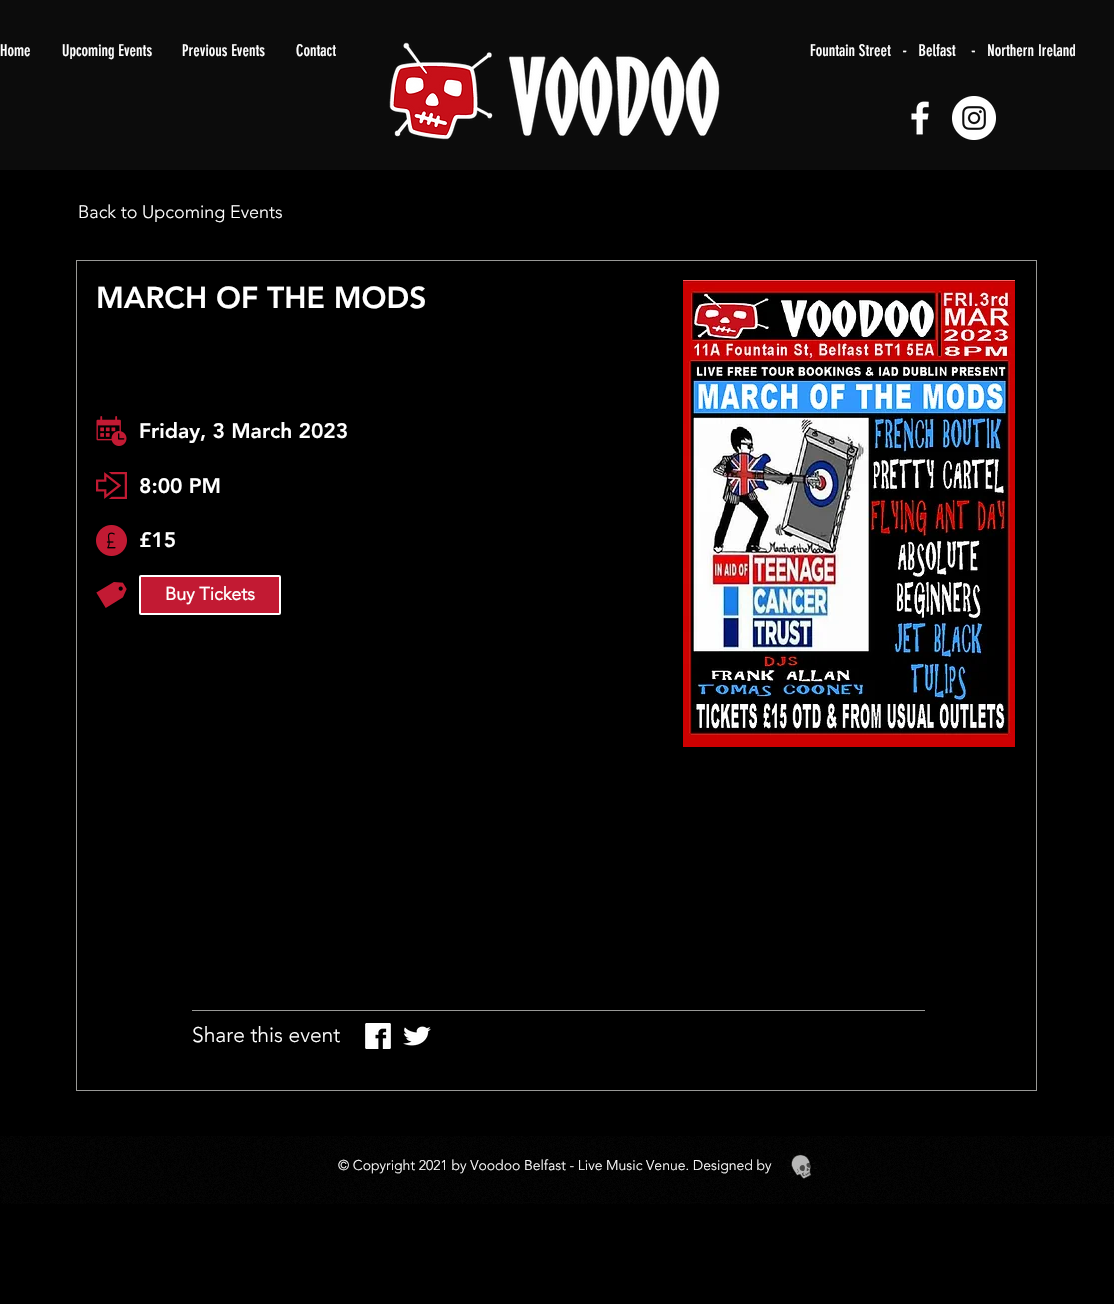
#include "include/core/SkBlurTypes.h"
#include "include/core/SkCanvas.h"
#include "include/core/SkData.h"
#include "include/core/SkFont.h"
#include "include/core/SkFontMgr.h"
#include "include/core/SkImage.h"
#include "include/core/SkMaskFilter.h"
#include "include/core/SkPaint.h"
#include "include/core/SkPathBuilder.h"
#include "include/core/SkTextBlob.h"
#include "include/effects/SkDashPathEffect.h"
#include "include/effects/SkGradientShader.h"
#include "include/utils/SkParsePath.h"

extern sk_sp<SkFontMgr> fontMgr;

void draw(SkCanvas* canvas) {
  SkPaint p;
  p.setAntiAlias(true);
  canvas->clear(SK_ColorBLACK);
  p.setColor(SkColorSetRGB(12, 12, 12));
  canvas->drawRect(SkRect::MakeLTRB(0, 0, 1114, 170), p);
  canvas->drawImageRect(SkImages::DeferredFromEncodedData(SkData::MakeFromFileName("images/1.png")), SkRect::MakeLTRB(389, 42, 720, 140), SkSamplingOptions());
  canvas->drawImageRect(SkImages::DeferredFromEncodedData(SkData::MakeFromFileName("images/2.png")), SkRect::MakeLTRB(911, 101, 929, 135), SkSamplingOptions());
  canvas->drawImageRect(SkImages::DeferredFromEncodedData(SkData::MakeFromFileName("images/3.png")), SkRect::MakeLTRB(952, 96, 996, 140), SkSamplingOptions());
  p.setStyle(SkPaint::kStroke_Style);
  p.setStrokeWidth(1);
  p.setColor(SkColorSetRGB(153, 153, 151));
  canvas->drawRect(SkRect::MakeLTRB(76.5f, 260.5f, 1036.5f, 1090.5f), p);
  canvas->drawImageRect(SkImages::DeferredFromEncodedData(SkData::MakeFromFileName("images/4.png")), SkRect::MakeLTRB(683, 280, 1015, 747), SkSamplingOptions());
  canvas->drawImageRect(SkImages::DeferredFromEncodedData(SkData::MakeFromFileName("images/5.png")), SkRect::MakeLTRB(96, 416, 127, 446), SkSamplingOptions());
  canvas->drawImageRect(SkImages::DeferredFromEncodedData(SkData::MakeFromFileName("images/6.png")), SkRect::MakeLTRB(96, 472, 127, 499), SkSamplingOptions());
  canvas->drawImageRect(SkImages::DeferredFromEncodedData(SkData::MakeFromFileName("images/7.png")), SkRect::MakeLTRB(96, 525, 127, 556), SkSamplingOptions());
  canvas->drawImageRect(SkImages::DeferredFromEncodedData(SkData::MakeFromFileName("images/8.png")), SkRect::MakeLTRB(96, 582, 127, 608), SkSamplingOptions());
  p.setStyle(SkPaint::kFill_Style);
  p.setColor(SkColorSetRGB(194, 26, 51));
  canvas->drawRoundRect(SkRect::MakeLTRB(140, 576, 280, 614), 1, 1, p);
  p.setStyle(SkPaint::kStroke_Style);
  p.setStrokeWidth(2);
  p.setColor(SK_ColorWHITE);
  canvas->drawRoundRect(SkRect::MakeLTRB(140, 576, 280, 614), 1, 1, p);
  p.setStyle(SkPaint::kFill_Style);
  p.setColor(SkColorSetRGB(153, 153, 151));
  canvas->drawRect(SkRect::MakeLTRB(192, 1010, 925, 1011), p);
  canvas->drawImageRect(SkImages::DeferredFromEncodedData(SkData::MakeFromFileName("images/9.png")), SkRect::MakeLTRB(365, 1023, 391, 1049), SkSamplingOptions());
  canvas->drawImageRect(SkImages::DeferredFromEncodedData(SkData::MakeFromFileName("images/10.png")), SkRect::MakeLTRB(403, 1026, 431, 1046), SkSamplingOptions());
  canvas->drawImageRect(SkImages::DeferredFromEncodedData(SkData::MakeFromFileName("images/11.png")), SkRect::MakeLTRB(0, 1136, 1114, 1204), SkSamplingOptions());
  canvas->drawImageRect(SkImages::DeferredFromEncodedData(SkData::MakeFromFileName("images/12.png")), SkRect::MakeLTRB(787, 1151, 817, 1179), SkSamplingOptions());
  SkFont font1(fontMgr->matchFamilyStyle("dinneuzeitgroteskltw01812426", SkFontStyle::Normal()), 16);
  font1.setSubpixel(true);
  p.setColor(SK_ColorWHITE);
  canvas->drawString("Home", 0, 56, font1, p);
  canvas->drawString("Upcoming Events", 62, 56, font1, p);
  canvas->drawString("Previous Events", 182, 56, font1, p);
  canvas->drawString("Contact", 296, 56, font1, p);
  canvas->drawString("Fountain Street   -   Belfast    -   Northern Ireland", 810, 56, font1, p);
  SkFont font2(fontMgr->matchFamilyStyle("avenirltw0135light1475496", SkFontStyle(300, SkFontStyle::kNormal_Width, SkFontStyle::kUpright_Slant)), 18);
  font2.setSubpixel(true);
  canvas->drawString("Back to Upcoming Events", 78, 218, font2, p);
  SkFont font3(fontMgr->matchFamilyStyle("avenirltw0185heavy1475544", SkFontStyle(900, SkFontStyle::kNormal_Width, SkFontStyle::kUpright_Slant)), 30);
  font3.setSubpixel(true);
  canvas->drawString("MARCH OF THE MODS", 96, 308, font3, p);
  SkFont font4(fontMgr->matchFamilyStyle("avenirltw0185heavy1475544", SkFontStyle(900, SkFontStyle::kNormal_Width, SkFontStyle::kUpright_Slant)), 21);
  font4.setSubpixel(true);
  canvas->drawString("Friday, 3 March 2023", 139, 438, font4, p);
  canvas->drawString("8:00 PM", 139, 493, font4, p);
  canvas->drawString("£15", 139, 547, font4, p);
  SkFont font5(fontMgr->matchFamilyStyle("avenirltw0135light1475496", SkFontStyle::Bold()), 18);
  font5.setSubpixel(true);
  canvas->drawString("Buy Tickets", 165, 600, font5, p);
  SkFont font6(fontMgr->matchFamilyStyle("avenirltw0135light1475496", SkFontStyle(300, SkFontStyle::kNormal_Width, SkFontStyle::kUpright_Slant)), 21);
  font6.setSubpixel(true);
  canvas->drawString("Share this event", 192, 1042, font6, p);
  SkFont font7(fontMgr->matchFamilyStyle("avenirltw0135light1475496", SkFontStyle(300, SkFontStyle::kNormal_Width, SkFontStyle::kUpright_Slant)), 14);
  font7.setSubpixel(true);
  canvas->drawString("© Copyright 2021 by Voodoo Belfast - Live Music Venue. Designed by", 338, 1170, font7, p);
}
